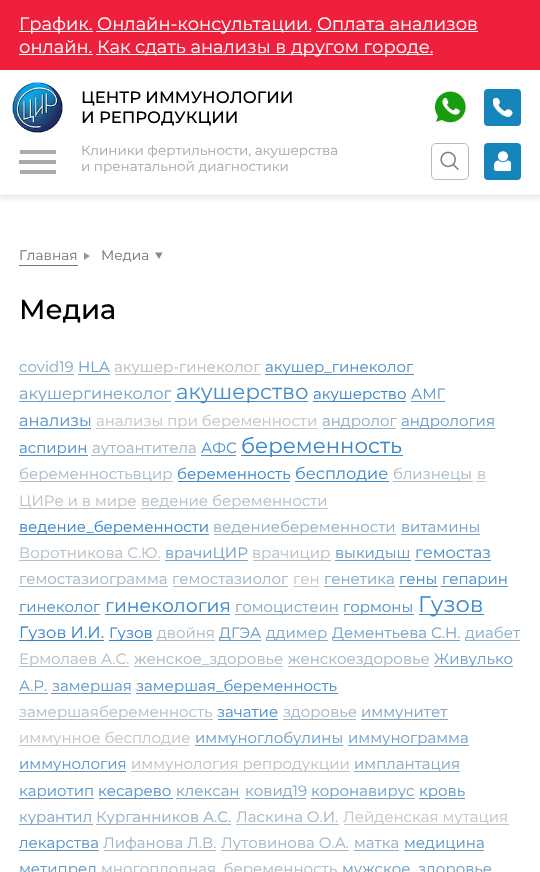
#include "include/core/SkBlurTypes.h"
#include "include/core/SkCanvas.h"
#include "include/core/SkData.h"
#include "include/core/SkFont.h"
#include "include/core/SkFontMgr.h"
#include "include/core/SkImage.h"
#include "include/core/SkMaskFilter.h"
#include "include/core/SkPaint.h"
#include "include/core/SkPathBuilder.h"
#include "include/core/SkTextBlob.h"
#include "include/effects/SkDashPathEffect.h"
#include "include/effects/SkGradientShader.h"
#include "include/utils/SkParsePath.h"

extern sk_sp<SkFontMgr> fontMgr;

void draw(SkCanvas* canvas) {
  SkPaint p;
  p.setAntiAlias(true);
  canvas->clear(SK_ColorWHITE);
  p.setColor(SkColorSetRGB(238, 32, 60));
  canvas->drawRect(SkRect::MakeLTRB(0, 0, 540, 70), p);
  p.setColor(SK_ColorWHITE);
  canvas->drawRect(SkRect::MakeLTRB(19, 31, 93, 32), p);
  canvas->drawRect(SkRect::MakeLTRB(96, 31, 311, 32), p);
  canvas->drawRect(SkRect::MakeLTRB(316, 31, 478, 32), p);
  canvas->drawRect(SkRect::MakeLTRB(19, 54, 93, 55), p);
  canvas->drawRect(SkRect::MakeLTRB(96, 54, 433, 55), p);
  canvas->save();
  canvas->clipRect(SkRect::MakeLTRB(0, 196, 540, 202));
  p.setColor(SkColorSetARGB(26, 100, 100, 100));
  p.setMaskFilter(SkMaskFilter::MakeBlur(kNormal_SkBlurStyle, 2));
  canvas->drawRect(SkRect::MakeLTRB(0, 74, 540, 200), p);
  p.setMaskFilter(nullptr);
  canvas->restore();
  p.setColor(SkColorSetRGB(229, 229, 229));
  canvas->drawRect(SkRect::MakeLTRB(0, 195, 540, 196), p);
  p.setColor(SkColorSetRGB(170, 170, 170));
  canvas->drawRect(SkRect::MakeLTRB(20, 150, 56, 154), p);
  canvas->drawRect(SkRect::MakeLTRB(20, 170, 56, 174), p);
  canvas->drawRect(SkRect::MakeLTRB(19, 160, 56, 164), p);
  canvas->drawImageRect(SkImages::DeferredFromEncodedData(SkData::MakeFromFileName("images/1.png")), SkRect::MakeLTRB(434, 91, 466, 123), SkSamplingOptions());
  p.setColor(SkColorSetRGB(21, 133, 186));
  canvas->drawRoundRect(SkRect::MakeLTRB(484, 89, 521, 126), 4, 4, p);
  canvas->drawImageRect(SkImages::DeferredFromEncodedData(SkData::MakeFromFileName("images/2.png")), SkRect::MakeLTRB(493, 98, 513, 117), SkSamplingOptions());
  canvas->drawImageRect(SkImages::DeferredFromEncodedData(SkData::MakeFromFileName("images/3.png")), SkRect::MakeLTRB(440, 151, 459, 170), SkSamplingOptions());
  p.setStyle(SkPaint::kStroke_Style);
  p.setStrokeWidth(1);
  p.setColor(SkColorSetRGB(187, 187, 187));
  canvas->drawRoundRect(SkRect::MakeLTRB(431.5f, 143.5f, 468.5f, 179.5f), 4.5f, 4.5f, p);
  p.setStyle(SkPaint::kFill_Style);
  p.setColor(SkColorSetRGB(21, 133, 186));
  canvas->drawRoundRect(SkRect::MakeLTRB(484, 143, 521, 180), 4, 4, p);
  canvas->drawImageRect(SkImages::DeferredFromEncodedData(SkData::MakeFromFileName("images/4.png")), SkRect::MakeLTRB(494, 151, 511, 171), SkSamplingOptions());
  canvas->drawImageRect(SkImages::DeferredFromEncodedData(SkData::MakeFromFileName("images/5.png")), SkRect::MakeLTRB(12, 82, 63, 133), SkSamplingOptions());
  p.setColor(SkColorSetRGB(119, 119, 119));
  canvas->drawRect(SkRect::MakeLTRB(19, 265, 78, 266), p);
  p.setColor(SkColorSetRGB(153, 153, 153));
  canvas->drawPath(SkPathBuilder().moveTo(84, 260).lineTo(84, 252.5f).lineTo(90, 256).close().detach(), p);
  p.setColor(SkColorSetRGB(136, 136, 136));
  canvas->drawPath(SkPathBuilder().moveTo(155, 252.5f).lineTo(162.5f, 252.5f).lineTo(159, 259).close().detach(), p);
  p.setColor(SkColorSetRGB(141, 173, 200));
  canvas->drawRect(SkRect::MakeLTRB(19, 374, 74, 375), p);
  p.setColor(SkColorSetRGB(110, 159, 200));
  canvas->drawRect(SkRect::MakeLTRB(78, 374, 110, 375), p);
  p.setColor(SkColorSetRGB(180, 191, 200));
  canvas->drawRect(SkRect::MakeLTRB(115, 374, 261, 375), p);
  p.setColor(SkColorSetRGB(81, 145, 200));
  canvas->drawRect(SkRect::MakeLTRB(265, 374, 414, 375), p);
  p.setColor(SkColorSetRGB(118, 163, 200));
  canvas->drawRect(SkRect::MakeLTRB(19, 401, 171, 402), p);
  p.setColor(SkColorSetRGB(74, 142, 200));
  canvas->drawRect(SkRect::MakeLTRB(175, 401, 308, 402), p);
  p.setColor(SkColorSetRGB(58, 135, 200));
  canvas->drawRect(SkRect::MakeLTRB(313, 401, 406, 402), p);
  p.setColor(SkColorSetRGB(97, 153, 200));
  canvas->drawRect(SkRect::MakeLTRB(411, 401, 445, 402), p);
  p.setColor(SkColorSetRGB(87, 148, 200));
  canvas->drawRect(SkRect::MakeLTRB(19, 428, 91, 429), p);
  p.setColor(SkColorSetRGB(196, 198, 200));
  canvas->drawRect(SkRect::MakeLTRB(96, 428, 318, 429), p);
  p.setColor(SkColorSetRGB(147, 176, 200));
  canvas->drawRect(SkRect::MakeLTRB(323, 428, 396, 429), p);
  p.setColor(SkColorSetRGB(113, 160, 200));
  canvas->drawRect(SkRect::MakeLTRB(401, 428, 495, 429), p);
  p.setColor(SkColorSetRGB(82, 146, 200));
  canvas->drawRect(SkRect::MakeLTRB(19, 455, 88, 456), p);
  p.setColor(SkColorSetRGB(163, 183, 200));
  canvas->drawRect(SkRect::MakeLTRB(91, 455, 196, 456), p);
  p.setColor(SkColorSetRGB(85, 148, 200));
  canvas->drawRect(SkRect::MakeLTRB(201, 455, 236, 456), p);
  p.setColor(SkColorSetRGB(61, 137, 200));
  canvas->drawRect(SkRect::MakeLTRB(241, 455, 403, 456), p);
  p.setColor(SkColorSetRGB(171, 187, 200));
  canvas->drawRect(SkRect::MakeLTRB(19, 481, 173, 482), p);
  p.setColor(SkColorSetRGB(60, 136, 200));
  canvas->drawRect(SkRect::MakeLTRB(178, 481, 290, 482), p);
  p.setColor(SkColorSetRGB(66, 139, 200));
  canvas->drawRect(SkRect::MakeLTRB(295, 481, 389, 482), p);
  p.setColor(SkColorSetRGB(171, 186, 200));
  canvas->drawRect(SkRect::MakeLTRB(393, 481, 473, 482), p);
  p.setColor(SkColorSetRGB(189, 195, 200));
  canvas->drawRect(SkRect::MakeLTRB(476, 481, 486, 482), p);
  canvas->drawRect(SkRect::MakeLTRB(19, 508, 136, 509), p);
  p.setColor(SkColorSetRGB(181, 191, 200));
  canvas->drawRect(SkRect::MakeLTRB(141, 508, 328, 509), p);
  p.setColor(SkColorSetRGB(62, 137, 200));
  canvas->drawRect(SkRect::MakeLTRB(19, 534, 209, 535), p);
  p.setColor(SkColorSetRGB(151, 178, 200));
  canvas->drawRect(SkRect::MakeLTRB(214, 534, 396, 535), p);
  p.setColor(SkColorSetRGB(117, 162, 200));
  canvas->drawRect(SkRect::MakeLTRB(401, 534, 480, 535), p);
  p.setColor(SkColorSetRGB(183, 192, 200));
  canvas->drawRect(SkRect::MakeLTRB(19, 560, 160, 561), p);
  p.setColor(SkColorSetRGB(119, 163, 200));
  canvas->drawRect(SkRect::MakeLTRB(165, 560, 248, 561), p);
  p.setColor(SkColorSetRGB(176, 189, 200));
  canvas->drawRect(SkRect::MakeLTRB(253, 560, 331, 561), p);
  p.setColor(SkColorSetRGB(104, 156, 200));
  canvas->drawRect(SkRect::MakeLTRB(335, 560, 411, 561), p);
  p.setColor(SkColorSetRGB(83, 146, 200));
  canvas->drawRect(SkRect::MakeLTRB(415, 560, 491, 561), p);
  p.setColor(SkColorSetRGB(158, 181, 200));
  canvas->drawRect(SkRect::MakeLTRB(19, 586, 168, 587), p);
  p.setColor(SkColorSetRGB(162, 182, 200));
  canvas->drawRect(SkRect::MakeLTRB(173, 586, 288, 587), p);
  p.setColor(SkColorSetRGB(199, 199, 200));
  canvas->drawRect(SkRect::MakeLTRB(293, 586, 319, 587), p);
  p.setColor(SkColorSetRGB(135, 170, 200));
  canvas->drawRect(SkRect::MakeLTRB(324, 586, 395, 587), p);
  p.setColor(SkColorSetRGB(73, 142, 200));
  canvas->drawRect(SkRect::MakeLTRB(399, 586, 438, 587), p);
  p.setColor(SkColorSetRGB(84, 147, 200));
  canvas->drawRect(SkRect::MakeLTRB(441, 586, 508, 587), p);
  p.setColor(SkColorSetRGB(77, 144, 200));
  canvas->drawRect(SkRect::MakeLTRB(19, 614, 100, 615), p);
  p.setColor(SkColorSetRGB(63, 137, 200));
  canvas->drawRect(SkRect::MakeLTRB(105, 614, 230, 615), p);
  p.setColor(SkColorSetRGB(134, 170, 200));
  canvas->drawRect(SkRect::MakeLTRB(235, 614, 339, 615), p);
  p.setColor(SkColorSetRGB(90, 150, 200));
  canvas->drawRect(SkRect::MakeLTRB(344, 614, 414, 615), p);
  p.setColor(SkColorSetRGB(68, 140, 200));
  canvas->drawRect(SkRect::MakeLTRB(419, 614, 484, 615), p);
  p.setColor(SkColorSetRGB(56, 134, 200));
  canvas->drawRect(SkRect::MakeLTRB(19, 640, 104, 641), p);
  p.setColor(SkColorSetRGB(59, 136, 200));
  canvas->drawRect(SkRect::MakeLTRB(109, 640, 153, 641), p);
  p.setColor(SkColorSetRGB(170, 186, 200));
  canvas->drawRect(SkRect::MakeLTRB(156, 640, 215, 641), p);
  p.setColor(SkColorSetRGB(103, 156, 200));
  canvas->drawRect(SkRect::MakeLTRB(219, 640, 261, 641), p);
  p.setColor(SkColorSetRGB(128, 167, 200));
  canvas->drawRect(SkRect::MakeLTRB(266, 640, 328, 641), p);
  p.setColor(SkColorSetRGB(120, 163, 200));
  canvas->drawRect(SkRect::MakeLTRB(333, 640, 460, 641), p);
  p.setColor(SkColorSetRGB(143, 174, 200));
  canvas->drawRect(SkRect::MakeLTRB(465, 640, 520, 641), p);
  p.setColor(SkColorSetRGB(178, 190, 200));
  canvas->drawRect(SkRect::MakeLTRB(19, 666, 129, 667), p);
  p.setColor(SkColorSetRGB(172, 187, 200));
  canvas->drawRect(SkRect::MakeLTRB(134, 666, 283, 667), p);
  p.setColor(SkColorSetRGB(160, 181, 200));
  canvas->drawRect(SkRect::MakeLTRB(288, 666, 429, 667), p);
  p.setColor(SkColorSetRGB(115, 161, 200));
  canvas->drawRect(SkRect::MakeLTRB(434, 666, 513, 667), p);
  canvas->drawRect(SkRect::MakeLTRB(19, 693, 48, 694), p);
  p.setColor(SkColorSetRGB(99, 154, 200));
  canvas->drawRect(SkRect::MakeLTRB(51, 693, 131, 694), p);
  p.setColor(SkColorSetRGB(79, 145, 200));
  canvas->drawRect(SkRect::MakeLTRB(136, 693, 338, 694), p);
  p.setColor(SkColorSetRGB(179, 190, 200));
  canvas->drawRect(SkRect::MakeLTRB(19, 719, 213, 720), p);
  p.setColor(SkColorSetRGB(76, 143, 200));
  canvas->drawRect(SkRect::MakeLTRB(218, 719, 278, 720), p);
  p.setColor(SkColorSetRGB(159, 181, 200));
  canvas->drawRect(SkRect::MakeLTRB(283, 719, 356, 720), p);
  p.setColor(SkColorSetRGB(127, 167, 200));
  canvas->drawRect(SkRect::MakeLTRB(361, 719, 448, 720), p);
  p.setColor(SkColorSetRGB(193, 196, 200));
  canvas->drawRect(SkRect::MakeLTRB(19, 745, 190, 746), p);
  p.setColor(SkColorSetRGB(107, 157, 200));
  canvas->drawRect(SkRect::MakeLTRB(195, 745, 343, 746), p);
  p.setColor(SkColorSetRGB(116, 162, 200));
  canvas->drawRect(SkRect::MakeLTRB(348, 745, 469, 746), p);
  p.setColor(SkColorSetRGB(95, 152, 200));
  canvas->drawRect(SkRect::MakeLTRB(19, 771, 126, 772), p);
  p.setColor(SkColorSetRGB(187, 194, 200));
  canvas->drawRect(SkRect::MakeLTRB(131, 771, 350, 772), p);
  p.setColor(SkColorSetRGB(132, 169, 200));
  canvas->drawRect(SkRect::MakeLTRB(354, 771, 460, 772), p);
  p.setColor(SkColorSetRGB(100, 154, 200));
  canvas->drawRect(SkRect::MakeLTRB(19, 798, 94, 799), p);
  p.setColor(SkColorSetRGB(88, 149, 200));
  canvas->drawRect(SkRect::MakeLTRB(99, 798, 173, 799), p);
  p.setColor(SkColorSetRGB(126, 166, 200));
  canvas->drawRect(SkRect::MakeLTRB(176, 798, 240, 799), p);
  p.setColor(SkColorSetRGB(130, 168, 200));
  canvas->drawRect(SkRect::MakeLTRB(245, 798, 306, 799), p);
  p.setColor(SkColorSetRGB(121, 164, 200));
  canvas->drawRect(SkRect::MakeLTRB(311, 798, 415, 799), p);
  p.setColor(SkColorSetRGB(94, 152, 200));
  canvas->drawRect(SkRect::MakeLTRB(419, 798, 465, 799), p);
  p.setColor(SkColorSetRGB(125, 166, 200));
  canvas->drawRect(SkRect::MakeLTRB(19, 824, 93, 825), p);
  p.setColor(SkColorSetRGB(148, 176, 200));
  canvas->drawRect(SkRect::MakeLTRB(96, 824, 231, 825), p);
  p.setColor(SkColorSetRGB(167, 185, 200));
  canvas->drawRect(SkRect::MakeLTRB(236, 824, 339, 825), p);
  p.setColor(SkColorSetRGB(192, 196, 200));
  canvas->drawRect(SkRect::MakeLTRB(344, 824, 509, 825), p);
  p.setColor(SkColorSetRGB(91, 150, 200));
  canvas->drawRect(SkRect::MakeLTRB(19, 850, 99, 851), p);
  p.setColor(SkColorSetRGB(157, 180, 200));
  canvas->drawRect(SkRect::MakeLTRB(104, 850, 216, 851), p);
  p.setColor(SkColorSetRGB(164, 183, 200));
  canvas->drawRect(SkRect::MakeLTRB(221, 850, 349, 851), p);
  p.setColor(SkColorSetRGB(142, 174, 200));
  canvas->drawRect(SkRect::MakeLTRB(354, 850, 399, 851), p);
  p.setColor(SkColorSetRGB(101, 155, 200));
  canvas->drawRect(SkRect::MakeLTRB(404, 850, 484, 851), p);
  SkFont font1(fontMgr->matchFamilyStyle("Montserrat", SkFontStyle::Normal()), 17.9f);
  font1.setSubpixel(true);
  p.setColor(SK_ColorWHITE);
  canvas->drawString("График.", 19, 30, font1, p);
  canvas->drawString("Онлайн-консультации. Оплата анализов", 97, 30, font1, p);
  canvas->drawString("онлайн.", 19, 53, font1, p);
  canvas->drawString("Как сдать анализы в другом городе.", 97, 53, font1, p);
  SkFont font2(fontMgr->matchFamilyStyle("Montserrat", SkFontStyle(500, SkFontStyle::kNormal_Width, SkFontStyle::kUpright_Slant)), 16.5f);
  font2.setSubpixel(true);
  p.setColor(SK_ColorBLACK);
  canvas->drawString("ЦЕНТР ИММУНОЛОГИИ", 81, 103, font2, p);
  canvas->drawString("И РЕПРОДУКЦИИ", 81, 123, font2, p);
  SkFont font3(fontMgr->matchFamilyStyle("Montserrat", SkFontStyle::Normal()), 13.5f);
  font3.setSubpixel(true);
  p.setColor(SkColorSetRGB(170, 170, 170));
  canvas->drawString("Клиники фертильности, акушерства", 81, 155, font3, p);
  canvas->drawString("и пренатальной диагностики", 81, 171, font3, p);
  SkFont font4(fontMgr->matchFamilyStyle("Montserrat", SkFontStyle::Normal()), 13.75f);
  font4.setSubpixel(true);
  p.setColor(SkColorSetRGB(119, 119, 119));
  canvas->drawString("Главная", 19, 260, font4, p);
  canvas->drawString("Медиа", 101, 260, font4, p);
  SkFont font5(fontMgr->matchFamilyStyle("Montserrat", SkFontStyle(500, SkFontStyle::kNormal_Width, SkFontStyle::kUpright_Slant)), 27.5f);
  font5.setSubpixel(true);
  p.setColor(SK_ColorBLACK);
  canvas->drawString("Медиа", 19, 319, font5, p);
  SkFont font6(fontMgr->matchFamilyStyle("Montserrat", SkFontStyle::Normal()), 15);
  font6.setSubpixel(true);
  p.setColor(SkColorSetRGB(141, 173, 200));
  canvas->drawString("covid19", 19, 372, font6, p);
  p.setColor(SkColorSetRGB(110, 159, 200));
  canvas->drawString("HLA", 78, 372, font6, p);
  p.setColor(SkColorSetRGB(180, 191, 200));
  canvas->drawString("акушер-гинеколог", 114, 372, font6, p);
  p.setColor(SkColorSetRGB(81, 145, 200));
  canvas->drawString("акушер_гинеколог", 265, 372, font6, p);
  SkFont font7(fontMgr->matchFamilyStyle("Montserrat", SkFontStyle::Normal()), 16.25f);
  font7.setSubpixel(true);
  p.setColor(SkColorSetRGB(118, 163, 200));
  canvas->drawString("акушергинеколог", 19, 399, font7, p);
  SkFont font8(fontMgr->matchFamilyStyle("Montserrat", SkFontStyle::Normal()), 21.25f);
  font8.setSubpixel(true);
  p.setColor(SkColorSetRGB(74, 142, 200));
  canvas->drawString("акушерство", 176, 399, font8, p);
  p.setColor(SkColorSetRGB(58, 135, 200));
  canvas->drawString("акушерство", 313, 399, font6, p);
  p.setColor(SkColorSetRGB(97, 153, 200));
  canvas->drawString("АМГ", 411, 399, font6, p);
  p.setColor(SkColorSetRGB(87, 148, 200));
  canvas->drawString("анализы", 19, 426, font7, p);
  p.setColor(SkColorSetRGB(196, 198, 200));
  canvas->drawString("анализы при беременности", 96, 426, font6, p);
  p.setColor(SkColorSetRGB(147, 176, 200));
  canvas->drawString("андролог", 322, 426, font6, p);
  p.setColor(SkColorSetRGB(110, 159, 200));
  canvas->drawString("андрология", 401, 426, font6, p);
  p.setColor(SkColorSetRGB(81, 145, 200));
  canvas->drawString("аспирин", 19, 453, font6, p);
  p.setColor(SkColorSetRGB(163, 183, 200));
  canvas->drawString("аутоантитела", 92, 453, font6, p);
  p.setColor(SkColorSetRGB(81, 145, 200));
  canvas->drawString("АФС", 201, 453, font6, p);
  p.setColor(SkColorSetRGB(58, 135, 200));
  canvas->drawString("беременность", 241, 453, font8, p);
  p.setColor(SkColorSetRGB(171, 187, 200));
  canvas->drawString("беременностьвцир", 19, 479, font6, p);
  p.setColor(SkColorSetRGB(58, 135, 200));
  canvas->drawString("беременность", 177, 479, font6, p);
  p.setColor(SkColorSetRGB(66, 139, 200));
  canvas->drawString("бесплодие", 295, 479, font7, p);
  p.setColor(SkColorSetRGB(171, 187, 200));
  canvas->drawString("близнецы", 393, 479, font6, p);
  p.setColor(SkColorSetRGB(189, 195, 200));
  canvas->drawString("в", 477, 479, font6, p);
  canvas->drawString("ЦИРе и в мире", 19, 506, font6, p);
  p.setColor(SkColorSetRGB(180, 191, 200));
  canvas->drawString("ведение беременности", 141, 506, font6, p);
  p.setColor(SkColorSetRGB(58, 135, 200));
  canvas->drawString("ведение_беременности", 19, 532, font6, p);
  p.setColor(SkColorSetRGB(147, 176, 200));
  canvas->drawString("ведениебеременности", 213, 532, font6, p);
  p.setColor(SkColorSetRGB(118, 163, 200));
  canvas->drawString("витамины", 401, 532, font6, p);
  p.setColor(SkColorSetRGB(180, 191, 200));
  canvas->drawString("Воротникова С.Ю.", 19, 558, font6, p);
  p.setColor(SkColorSetRGB(118, 163, 200));
  canvas->drawString("врачиЦИР", 165, 558, font6, p);
  p.setColor(SkColorSetRGB(180, 191, 200));
  canvas->drawString("врачицир", 252, 558, font6, p);
  p.setColor(SkColorSetRGB(104, 156, 200));
  canvas->drawString("выкидыш", 335, 558, font6, p);
  p.setColor(SkColorSetRGB(81, 145, 200));
  canvas->drawString("гемостаз", 415, 558, font7, p);
  p.setColor(SkColorSetRGB(163, 183, 200));
  canvas->drawString("гемостазиограмма", 19, 584, font6, p);
  canvas->drawString("гемостазиолог", 172, 584, font6, p);
  p.setColor(SkColorSetRGB(196, 198, 200));
  canvas->drawString("ген", 293, 584, font6, p);
  p.setColor(SkColorSetRGB(135, 170, 200));
  canvas->drawString("генетика", 324, 584, font6, p);
  p.setColor(SkColorSetRGB(74, 142, 200));
  canvas->drawString("гены", 399, 584, font6, p);
  p.setColor(SkColorSetRGB(81, 145, 200));
  canvas->drawString("гепарин", 442, 584, font6, p);
  canvas->drawString("гинеколог", 19, 612, font6, p);
  SkFont font9(fontMgr->matchFamilyStyle("Montserrat", SkFontStyle::Normal()), 18.75f);
  font9.setSubpixel(true);
  p.setColor(SkColorSetRGB(58, 135, 200));
  canvas->drawString("гинекология", 105, 612, font9, p);
  p.setColor(SkColorSetRGB(135, 170, 200));
  canvas->drawString("гомоцистеин", 235, 612, font6, p);
  p.setColor(SkColorSetRGB(87, 148, 200));
  canvas->drawString("гормоны", 343, 612, font6, p);
  SkFont font10(fontMgr->matchFamilyStyle("Montserrat", SkFontStyle::Normal()), 22.5f);
  font10.setSubpixel(true);
  p.setColor(SkColorSetRGB(66, 139, 200));
  canvas->drawString("Гузов", 418, 612, font10, p);
  p.setColor(SkColorSetRGB(58, 135, 200));
  canvas->drawString("Гузов И.И.", 19, 638, font7, p);
  canvas->drawString("Гузов", 109, 638, font6, p);
  p.setColor(SkColorSetRGB(171, 187, 200));
  canvas->drawString("двойня", 157, 638, font6, p);
  p.setColor(SkColorSetRGB(104, 156, 200));
  canvas->drawString("ДГЭА", 219, 638, font6, p);
  p.setColor(SkColorSetRGB(128, 167, 200));
  canvas->drawString("ддимер", 266, 638, font6, p);
  p.setColor(SkColorSetRGB(118, 163, 200));
  canvas->drawString("Дементьева С.Н.", 332, 638, font6, p);
  p.setColor(SkColorSetRGB(141, 173, 200));
  canvas->drawString("диабет", 465, 638, font6, p);
  p.setColor(SkColorSetRGB(180, 191, 200));
  canvas->drawString("Ермолаев А.С.", 19, 664, font6, p);
  p.setColor(SkColorSetRGB(171, 187, 200));
  canvas->drawString("женское_здоровье", 134, 664, font6, p);
  p.setColor(SkColorSetRGB(163, 183, 200));
  canvas->drawString("женскоездоровье", 288, 664, font6, p);
  p.setColor(SkColorSetRGB(110, 159, 200));
  canvas->drawString("Живулько", 434, 664, font6, p);
  canvas->drawString("А.Р.", 19, 691, font6, p);
  p.setColor(SkColorSetRGB(97, 153, 200));
  canvas->drawString("замершая", 52, 691, font6, p);
  p.setColor(SkColorSetRGB(81, 145, 200));
  canvas->drawString("замершая_беременность", 136, 691, font6, p);
  p.setColor(SkColorSetRGB(180, 191, 200));
  canvas->drawString("замершаябеременность", 19, 717, font6, p);
  p.setColor(SkColorSetRGB(81, 145, 200));
  canvas->drawString("зачатие", 217, 717, font6, p);
  p.setColor(SkColorSetRGB(163, 183, 200));
  canvas->drawString("здоровье", 283, 717, font6, p);
  p.setColor(SkColorSetRGB(128, 167, 200));
  canvas->drawString("иммунитет", 361, 717, font6, p);
  p.setColor(SkColorSetRGB(196, 198, 200));
  canvas->drawString("иммунное бесплодие", 19, 743, font6, p);
  p.setColor(SkColorSetRGB(110, 159, 200));
  canvas->drawString("иммуноглобулины", 195, 743, font6, p);
  p.setColor(SkColorSetRGB(118, 163, 200));
  canvas->drawString("иммунограмма", 348, 743, font6, p);
  p.setColor(SkColorSetRGB(97, 153, 200));
  canvas->drawString("иммунология", 19, 769, font6, p);
  p.setColor(SkColorSetRGB(189, 195, 200));
  canvas->drawString("иммунология репродукции", 131, 769, font6, p);
  p.setColor(SkColorSetRGB(135, 170, 200));
  canvas->drawString("имплантация", 354, 769, font6, p);
  p.setColor(SkColorSetRGB(97, 153, 200));
  canvas->drawString("кариотип", 19, 796, font6, p);
  p.setColor(SkColorSetRGB(87, 148, 200));
  canvas->drawString("кесарево", 98, 796, font6, p);
  p.setColor(SkColorSetRGB(128, 167, 200));
  canvas->drawString("клексан", 176, 796, font6, p);
  p.setColor(SkColorSetRGB(135, 170, 200));
  canvas->drawString("ковид19", 245, 796, font6, p);
  p.setColor(SkColorSetRGB(118, 163, 200));
  canvas->drawString("коронавирус", 311, 796, font6, p);
  p.setColor(SkColorSetRGB(97, 153, 200));
  canvas->drawString("кровь", 419, 796, font6, p);
  p.setColor(SkColorSetRGB(128, 167, 200));
  canvas->drawString("курантил", 19, 822, font6, p);
  p.setColor(SkColorSetRGB(147, 176, 200));
  canvas->drawString("Курганников А.С.", 96, 822, font6, p);
  p.setColor(SkColorSetRGB(163, 183, 200));
  canvas->drawString("Ласкина О.И.", 236, 822, font6, p);
  p.setColor(SkColorSetRGB(196, 198, 200));
  canvas->drawString("Лейденская мутация", 343, 822, font6, p);
  p.setColor(SkColorSetRGB(87, 148, 200));
  canvas->drawString("лекарства", 19, 848, font6, p);
  p.setColor(SkColorSetRGB(157, 180, 200));
  canvas->drawString("Лифанова Л.В.", 103, 848, font6, p);
  p.setColor(SkColorSetRGB(163, 183, 200));
  canvas->drawString("Лутовинова О.А.", 221, 848, font6, p);
  p.setColor(SkColorSetRGB(141, 173, 200));
  canvas->drawString("матка", 354, 848, font6, p);
  p.setColor(SkColorSetRGB(97, 153, 200));
  canvas->drawString("медицина", 404, 848, font6, p);
  canvas->drawString("метипред", 19, 874, font6, p);
  p.setColor(SkColorSetRGB(171, 187, 200));
  canvas->drawString("многоплодная_беременность", 101, 874, font6, p);
  p.setColor(SkColorSetRGB(110, 159, 200));
  canvas->drawString("мужское_здоровье", 342, 874, font6, p);
}
